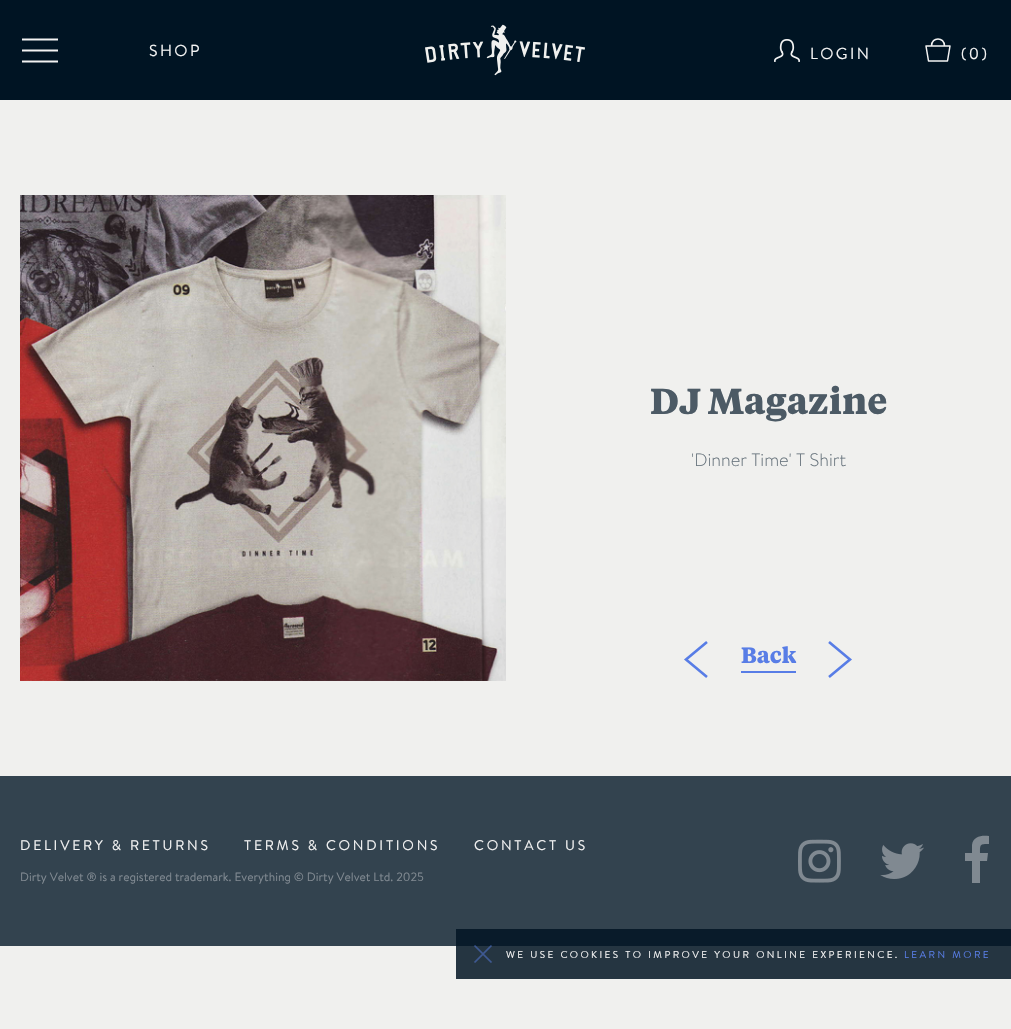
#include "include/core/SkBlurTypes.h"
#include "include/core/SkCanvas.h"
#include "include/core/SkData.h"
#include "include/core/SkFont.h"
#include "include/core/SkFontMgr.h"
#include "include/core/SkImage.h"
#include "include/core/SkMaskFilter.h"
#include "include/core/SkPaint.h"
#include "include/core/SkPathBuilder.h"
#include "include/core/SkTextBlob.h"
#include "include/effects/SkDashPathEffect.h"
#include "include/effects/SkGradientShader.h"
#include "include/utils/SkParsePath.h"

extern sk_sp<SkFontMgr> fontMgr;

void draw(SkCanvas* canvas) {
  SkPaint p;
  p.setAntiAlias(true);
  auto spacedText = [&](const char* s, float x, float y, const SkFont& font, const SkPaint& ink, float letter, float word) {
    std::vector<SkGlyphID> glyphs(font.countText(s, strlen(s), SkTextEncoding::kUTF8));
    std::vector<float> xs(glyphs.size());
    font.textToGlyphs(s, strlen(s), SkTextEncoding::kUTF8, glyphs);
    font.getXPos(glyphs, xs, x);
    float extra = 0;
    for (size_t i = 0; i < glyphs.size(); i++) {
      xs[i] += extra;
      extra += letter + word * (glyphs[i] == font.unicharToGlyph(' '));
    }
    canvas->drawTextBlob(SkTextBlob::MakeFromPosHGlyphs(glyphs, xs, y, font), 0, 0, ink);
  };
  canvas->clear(SkColorSetRGB(240, 240, 238));
  p.setColor(SkColorSetRGB(37, 53, 65));
  canvas->drawRect(SkRect::MakeLTRB(456, 946, 1011, 979), p);
  p.setColor(SkColorSetRGB(0, 20, 35));
  canvas->drawRect(SkRect::MakeLTRB(0, 0, 1011, 100), p);
  canvas->save();
  canvas->clipRect(SkRect::MakeLTRB(22, 38, 58, 63));
  p.setStyle(SkPaint::kStroke_Style);
  p.setStrokeWidth(1.8f);
  p.setStrokeCap(SkPaint::kRound_Cap);
  p.setStrokeJoin(SkPaint::kRound_Join);
  p.setColor(SkColorSetRGB(243, 243, 243));
  canvas->drawPath(SkPathBuilder().moveTo(22, 39.5f).lineTo(58, 39.5f).moveTo(22, 50.5f).lineTo(58, 50.5f).moveTo(22, 61.5f).lineTo(58, 61.5f).detach(), p);
  canvas->restore();
  canvas->drawImageRect(SkImages::DeferredFromEncodedData(SkData::MakeFromFileName("images/1.png")), SkRect::MakeLTRB(425, 24, 585, 76), SkSamplingOptions());
  canvas->drawImageRect(SkImages::DeferredFromEncodedData(SkData::MakeFromFileName("images/2.png")), SkRect::MakeLTRB(774, 39, 800, 62), SkSamplingOptions());
  p.setStrokeWidth(1.5f);
  canvas->drawPath(SkPathBuilder().moveTo(931.5f, 46).cubicTo(931.5f, 36.5f, 944.5f, 36.5f, 944.5f, 46).moveTo(947.5f, 61).lineTo(928.5f, 61).lineTo(926, 46).lineTo(950, 46).close().detach(), p);
  canvas->drawImageRect(SkImages::DeferredFromEncodedData(SkData::MakeFromFileName("images/3.png")), SkRect::MakeLTRB(20, 195, 506, 681), SkSamplingOptions());
  p.setStrokeWidth(2.6f);
  p.setStrokeCap(SkPaint::kButt_Cap);
  p.setStrokeJoin(SkPaint::kMiter_Join);
  p.setColor(SkColorSetRGB(88, 125, 230));
  canvas->drawPath(SkPathBuilder().moveTo(707, 677).lineTo(686, 659.5f).lineTo(707, 642).detach(), p);
  p.setStyle(SkPaint::kFill_Style);
  canvas->drawRect(SkRect::MakeLTRB(741, 671, 796, 673), p);
  p.setStyle(SkPaint::kStroke_Style);
  canvas->drawPath(SkPathBuilder().moveTo(829, 677).lineTo(850, 659.5f).lineTo(829, 642).detach(), p);
  p.setStyle(SkPaint::kFill_Style);
  p.setColor(SkColorSetRGB(51, 67, 79));
  canvas->drawRect(SkRect::MakeLTRB(0, 776, 1011, 946), p);
  p.setColor(SkColorSetRGB(9, 27, 42));
  canvas->drawRect(SkRect::MakeLTRB(456, 929, 1011, 946), p);
  canvas->drawImageRect(SkImages::DeferredFromEncodedData(SkData::MakeFromFileName("images/4.png")), SkRect::MakeLTRB(798, 839, 841, 883), SkSamplingOptions());
  canvas->drawImageRect(SkImages::DeferredFromEncodedData(SkData::MakeFromFileName("images/5.png")), SkRect::MakeLTRB(880, 843, 924, 879), SkSamplingOptions());
  p.setColor(SkColorSetRGB(128, 137, 145));
  canvas->drawPath(SkPathBuilder().moveTo(989, 836).lineTo(989, 844).cubicTo(980, 844, 980, 844, 980, 853).lineTo(988, 853).lineTo(987, 861).lineTo(980, 861).lineTo(980, 883).lineTo(972, 883).lineTo(972, 861).lineTo(965, 861).lineTo(965, 853).lineTo(972, 853).lineTo(972, 845).cubicTo(973, 836, 982, 835, 989, 836).close().detach(), p);
  p.setStyle(SkPaint::kStroke_Style);
  p.setStrokeWidth(1.7f);
  p.setColor(SkColorSetARGB(128, 88, 125, 230));
  canvas->drawPath(SkPathBuilder().moveTo(491.5f, 945.5f).lineTo(483, 954).lineTo(491.5f, 962.5f).moveTo(474.5f, 962.5f).lineTo(483, 954).lineTo(474.5f, 945.5f).detach(), p);
  SkFont font1(fontMgr->matchFamilyStyle("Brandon", SkFontStyle::Normal()), 16);
  font1.setSubpixel(true);
  p.setStyle(SkPaint::kFill_Style);
  p.setColor(SkColorSetRGB(243, 243, 243));
  spacedText("SHOP", 149, 56, font1, p, 2.4f, 0);
  spacedText("LOGIN", 810, 59, font1, p, 2.4f, 0);
  spacedText("(0)", 961, 59, font1, p, 2.4f, 0);
  SkFont font2(fontMgr->matchFamilyStyle("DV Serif", SkFontStyle::Bold()), 36);
  font2.setSubpixel(true);
  p.setColor(SkColorSetRGB(76, 90, 101));
  canvas->drawString("DJ Magazine", 650, 414, font2, p);
  SkFont font3(fontMgr->matchFamilyStyle("Brandon", SkFontStyle(300, SkFontStyle::kNormal_Width, SkFontStyle::kUpright_Slant)), 18);
  font3.setSubpixel(true);
  p.setColor(SkColorSetRGB(102, 114, 123));
  canvas->drawString("'Dinner Time' T Shirt", 691, 466, font3, p);
  SkFont font4(fontMgr->matchFamilyStyle("DV Serif", SkFontStyle::Bold()), 22);
  font4.setSubpixel(true);
  p.setColor(SkColorSetRGB(88, 125, 230));
  canvas->drawString("Back", 741, 663, font4, p);
  SkFont font5(fontMgr->matchFamilyStyle("Brandon", SkFontStyle::Normal()), 14);
  font5.setSubpixel(true);
  p.setColor(SkColorSetRGB(243, 243, 243));
  spacedText("DELIVERY & RETURNS", 20, 850, font5, p, 2.75f, 0);
  spacedText("TERMS & CONDITIONS", 244, 850, font5, p, 2.75f, 0);
  spacedText("CONTACT US", 474, 850, font5, p, 2.75f, 0);
  SkFont font6(fontMgr->matchFamilyStyle("Brandon", SkFontStyle::Normal()), 12);
  font6.setSubpixel(true);
  p.setColor(SkColorSetRGB(128, 137, 145));
  canvas->drawString("Dirty Velvet ® is a registered trademark. Everything © Dirty Velvet Ltd. 2025", 20, 881, font6, p);
  SkFont font7(fontMgr->matchFamilyStyle("Brandon", SkFontStyle::Normal()), 10);
  font7.setSubpixel(true);
  p.setColor(SkColorSetRGB(243, 243, 243));
  spacedText("WE USE COOKIES TO IMPROVE YOUR ONLINE EXPERIENCE.", 506, 958, font7, p, 2.4f, 0);
  p.setColor(SkColorSetRGB(88, 125, 230));
  spacedText("LEARN MORE", 904, 958, font7, p, 2.4f, 0);
}
